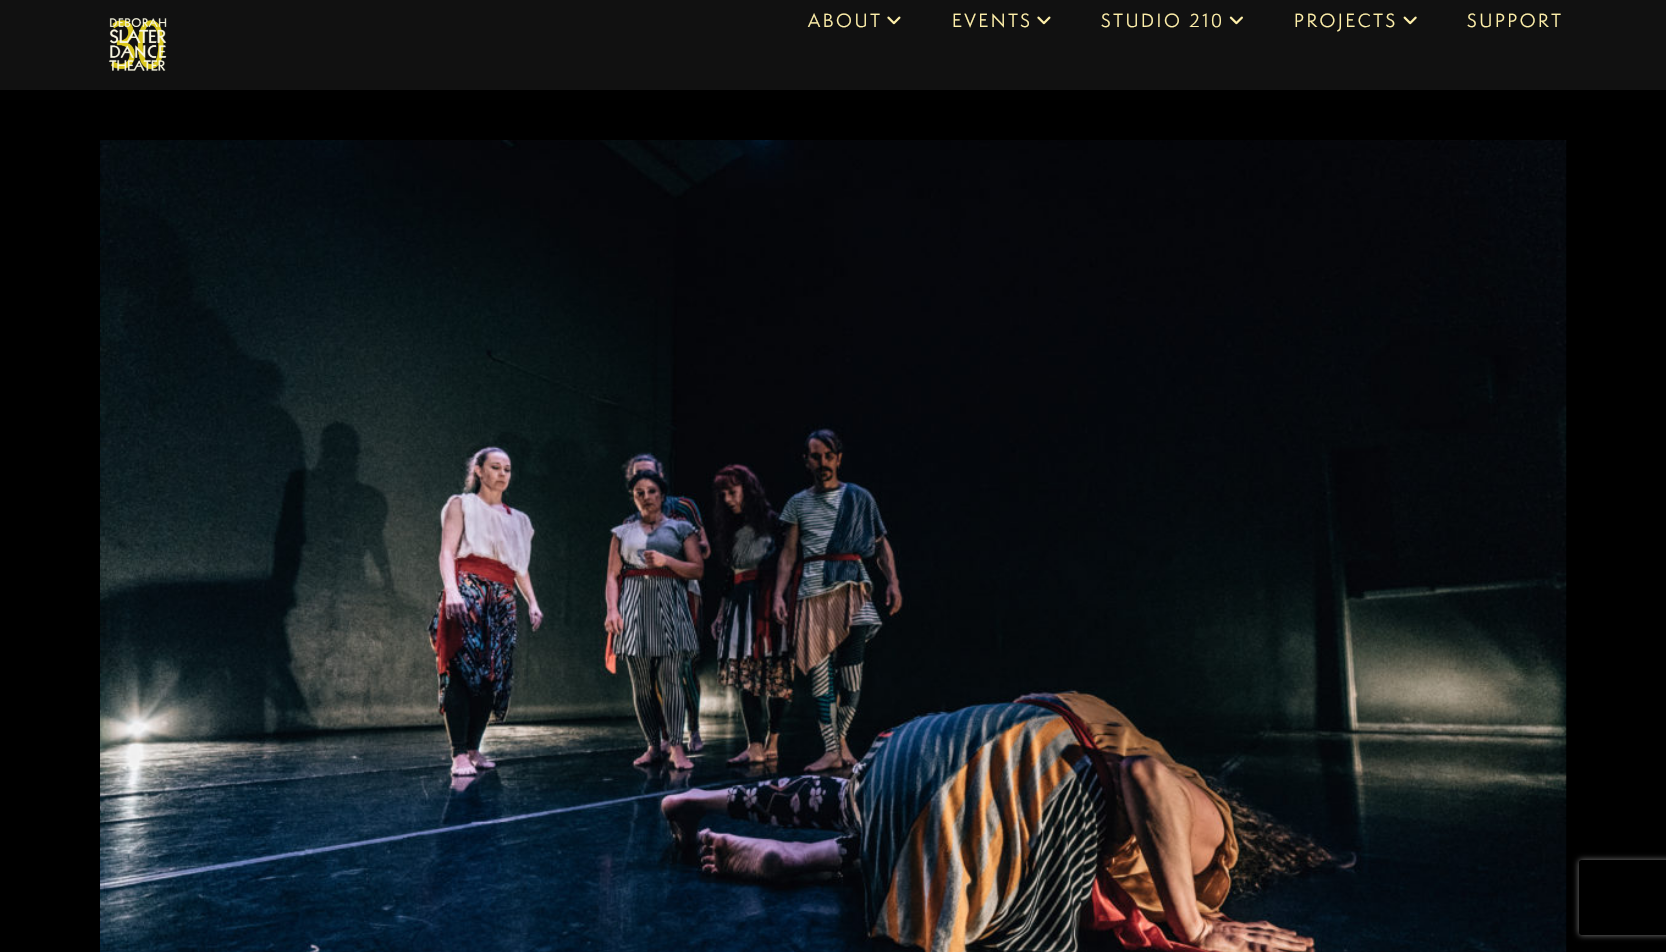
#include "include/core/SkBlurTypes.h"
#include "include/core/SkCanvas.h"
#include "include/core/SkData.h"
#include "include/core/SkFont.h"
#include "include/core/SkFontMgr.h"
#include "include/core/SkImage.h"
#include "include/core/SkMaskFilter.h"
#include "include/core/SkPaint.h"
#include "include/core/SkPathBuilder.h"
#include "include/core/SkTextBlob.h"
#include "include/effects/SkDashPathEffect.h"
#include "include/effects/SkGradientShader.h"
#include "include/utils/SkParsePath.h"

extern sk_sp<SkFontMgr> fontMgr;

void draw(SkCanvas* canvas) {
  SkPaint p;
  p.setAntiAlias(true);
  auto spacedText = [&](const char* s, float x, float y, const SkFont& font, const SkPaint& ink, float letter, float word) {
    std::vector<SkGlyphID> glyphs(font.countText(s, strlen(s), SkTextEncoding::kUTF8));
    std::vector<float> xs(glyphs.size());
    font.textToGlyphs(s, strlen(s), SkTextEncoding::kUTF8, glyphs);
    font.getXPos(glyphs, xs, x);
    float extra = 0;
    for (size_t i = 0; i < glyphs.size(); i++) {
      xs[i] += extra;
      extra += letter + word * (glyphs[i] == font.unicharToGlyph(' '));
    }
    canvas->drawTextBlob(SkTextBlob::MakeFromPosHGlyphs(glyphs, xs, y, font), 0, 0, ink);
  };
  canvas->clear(SK_ColorBLACK);
  p.setColor(SkColorSetRGB(17, 17, 17));
  canvas->drawRect(SkRect::MakeLTRB(0, 0, 1666, 90), p);
  canvas->drawImageRect(SkImages::DeferredFromEncodedData(SkData::MakeFromFileName("images/1.png")), SkRect::MakeLTRB(108, 18, 167, 71), SkSamplingOptions());
  canvas->drawImageRect(SkImages::DeferredFromEncodedData(SkData::MakeFromFileName("images/2.png")), SkRect::MakeLTRB(887, 16, 901, 25), SkSamplingOptions());
  canvas->drawImageRect(SkImages::DeferredFromEncodedData(SkData::MakeFromFileName("images/2.png")), SkRect::MakeLTRB(1037, 16, 1051, 25), SkSamplingOptions());
  canvas->drawImageRect(SkImages::DeferredFromEncodedData(SkData::MakeFromFileName("images/3.png")), SkRect::MakeLTRB(1229, 16, 1243, 25), SkSamplingOptions());
  canvas->drawImageRect(SkImages::DeferredFromEncodedData(SkData::MakeFromFileName("images/4.png")), SkRect::MakeLTRB(1403, 16, 1417, 25), SkSamplingOptions());
  canvas->drawImageRect(SkImages::DeferredFromEncodedData(SkData::MakeFromFileName("images/5.png")), SkRect::MakeLTRB(100, 140, 1567, 952), SkSamplingOptions());
  canvas->save();
  canvas->clipPath(SkPathBuilder(SkPathFillType::kEvenOdd).moveTo(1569, 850).lineTo(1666, 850).lineTo(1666, 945).lineTo(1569, 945).close().moveTo(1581.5f, 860).lineTo(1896.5f, 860).cubicTo(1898, 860, 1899, 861, 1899, 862.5f).lineTo(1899, 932.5f).cubicTo(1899, 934, 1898, 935, 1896.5f, 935).lineTo(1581.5f, 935).cubicTo(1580, 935, 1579, 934, 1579, 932.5f).lineTo(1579, 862.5f).cubicTo(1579, 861, 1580, 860, 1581.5f, 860).close().detach(), true);
  p.setColor(SkColorSetRGB(128, 128, 128));
  p.setMaskFilter(SkMaskFilter::MakeBlur(kNormal_SkBlurStyle, 3));
  canvas->drawRoundRect(SkRect::MakeLTRB(1579, 860, 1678, 935), 2.5f, 2.5f, p);
  p.setMaskFilter(nullptr);
  canvas->restore();
  SkFont font1(fontMgr->matchFamilyStyle("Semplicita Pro", SkFontStyle::Normal()), 17.5f);
  font1.setSubpixel(true);
  p.setColor(SkColorSetRGB(255, 240, 170));
  spacedText("ABOUT", 808, 27, font1, p, 2.6f, 0);
  spacedText("EVENTS", 952, 27, font1, p, 2.6f, 0);
  spacedText("STUDIO 210", 1101, 27, font1, p, 2.6f, 0);
  spacedText("PROJECTS", 1294, 27, font1, p, 2.6f, 0);
  spacedText("SUPPORT", 1467, 27, font1, p, 2.6f, 0);
}
